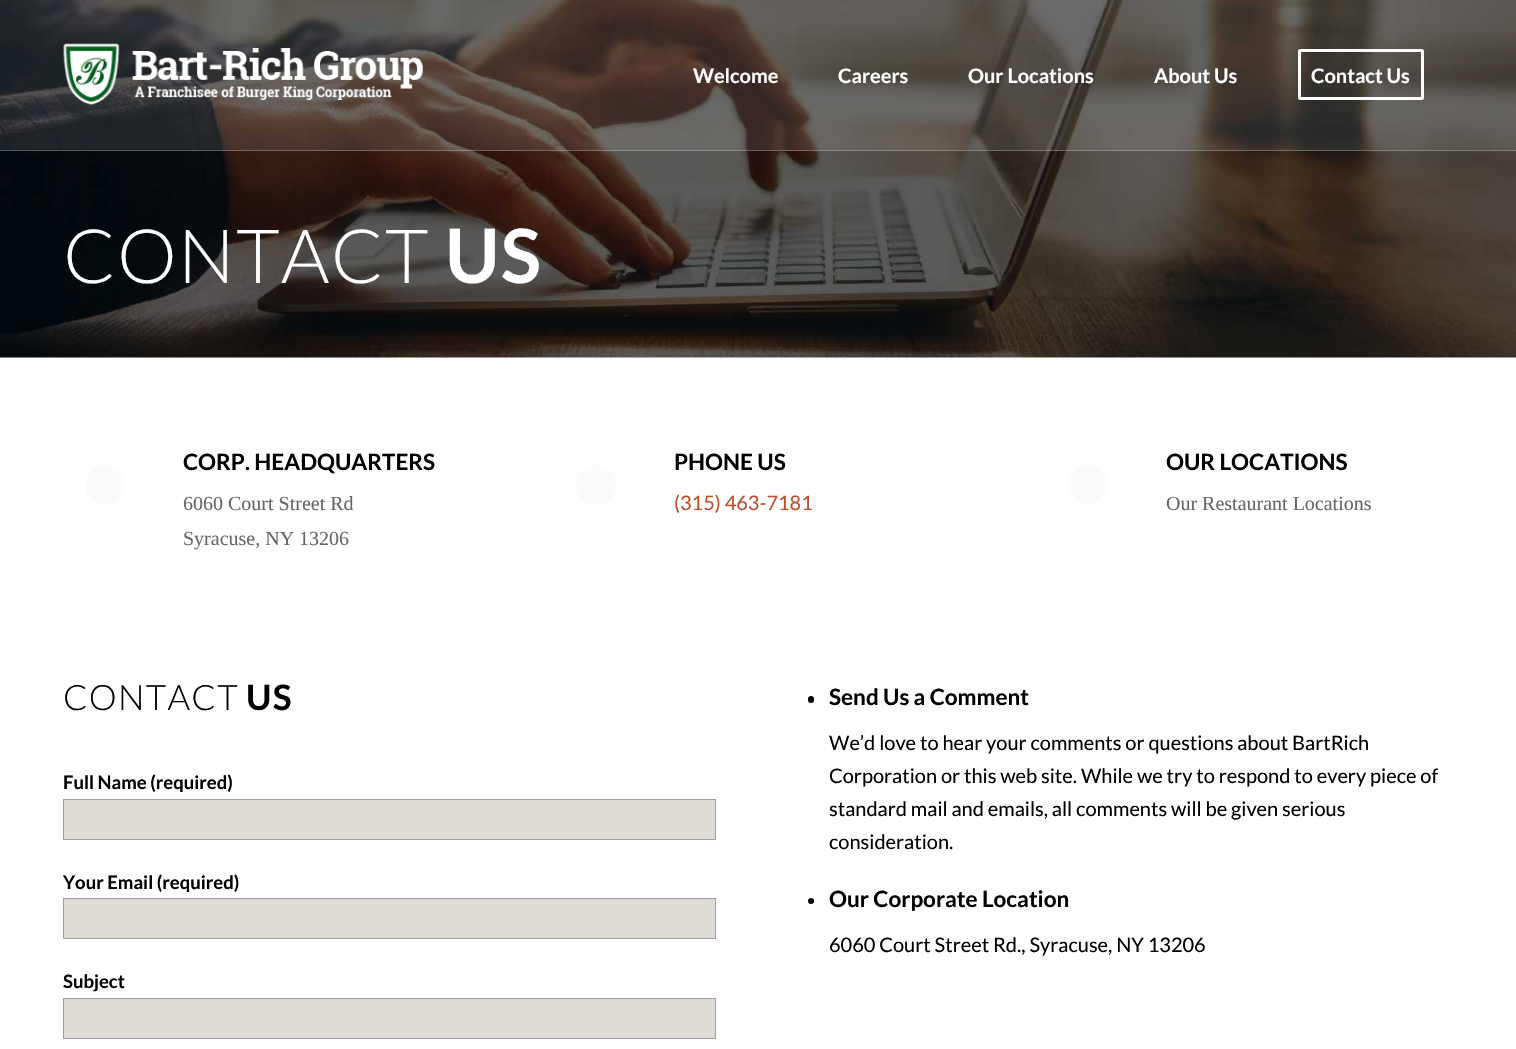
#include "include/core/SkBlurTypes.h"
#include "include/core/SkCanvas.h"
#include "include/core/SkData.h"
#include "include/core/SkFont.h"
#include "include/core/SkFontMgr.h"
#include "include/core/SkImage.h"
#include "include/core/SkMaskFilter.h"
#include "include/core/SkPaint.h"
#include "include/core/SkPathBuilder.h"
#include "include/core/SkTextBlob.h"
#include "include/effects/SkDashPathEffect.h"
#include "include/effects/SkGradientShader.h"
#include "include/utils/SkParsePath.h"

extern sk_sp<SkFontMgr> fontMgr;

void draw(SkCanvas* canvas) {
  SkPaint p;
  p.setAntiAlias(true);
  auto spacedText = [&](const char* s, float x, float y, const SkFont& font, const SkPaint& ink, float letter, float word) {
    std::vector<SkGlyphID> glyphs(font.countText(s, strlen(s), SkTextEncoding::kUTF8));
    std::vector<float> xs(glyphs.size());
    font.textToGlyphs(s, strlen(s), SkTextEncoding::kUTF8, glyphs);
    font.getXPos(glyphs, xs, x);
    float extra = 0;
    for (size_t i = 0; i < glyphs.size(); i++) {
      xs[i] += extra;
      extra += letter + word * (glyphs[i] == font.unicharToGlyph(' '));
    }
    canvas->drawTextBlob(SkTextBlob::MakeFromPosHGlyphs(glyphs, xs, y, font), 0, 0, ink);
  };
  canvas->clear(SK_ColorWHITE);
  canvas->drawImageRect(SkImages::DeferredFromEncodedData(SkData::MakeFromFileName("images/2.png")), SkRect::MakeLTRB(0, 0, 1516, 358), SkSamplingOptions());
  p.setColor(SkColorSetARGB(26, 255, 255, 255));
  canvas->drawRect(SkRect::MakeLTRB(0, 0, 1516, 151), p);
  p.setColor(SkColorSetARGB(64, 255, 255, 255));
  canvas->drawRect(SkRect::MakeLTRB(0, 150, 1516, 151), p);
  canvas->drawImageRect(SkImages::DeferredFromEncodedData(SkData::MakeFromFileName("images/1.png")), SkRect::MakeLTRB(63, 43, 424, 105), SkSamplingOptions());
  p.setStyle(SkPaint::kStroke_Style);
  p.setStrokeWidth(3);
  p.setColor(SK_ColorWHITE);
  canvas->drawRoundRect(SkRect::MakeLTRB(1299.5f, 50.5f, 1422.5f, 98.5f), 1, 1, p);
  p.setStyle(SkPaint::kFill_Style);
  p.setColor(SkColorSetRGB(251, 251, 250));
  canvas->drawCircle(105, 485, 20, p);
  canvas->drawCircle(596, 485, 20, p);
  canvas->drawCircle(1088, 485, 20, p);
  p.setColor(SkColorSetRGB(223, 220, 213));
  canvas->drawRect(SkRect::MakeLTRB(63.5f, 799.5f, 715.5f, 839.5f), p);
  p.setStyle(SkPaint::kStroke_Style);
  p.setStrokeWidth(1);
  p.setColor(SkColorSetRGB(158, 158, 158));
  canvas->drawRect(SkRect::MakeLTRB(63.5f, 799.5f, 715.5f, 839.5f), p);
  p.setStyle(SkPaint::kFill_Style);
  p.setColor(SkColorSetRGB(223, 220, 213));
  canvas->drawRect(SkRect::MakeLTRB(63.5f, 898.5f, 715.5f, 938.5f), p);
  p.setStyle(SkPaint::kStroke_Style);
  p.setColor(SkColorSetRGB(158, 158, 158));
  canvas->drawRect(SkRect::MakeLTRB(63.5f, 898.5f, 715.5f, 938.5f), p);
  p.setStyle(SkPaint::kFill_Style);
  p.setColor(SkColorSetRGB(223, 220, 213));
  canvas->drawRect(SkRect::MakeLTRB(63.5f, 998.5f, 715.5f, 1038.5f), p);
  p.setStyle(SkPaint::kStroke_Style);
  p.setColor(SkColorSetRGB(158, 158, 158));
  canvas->drawRect(SkRect::MakeLTRB(63.5f, 998.5f, 715.5f, 1038.5f), p);
  p.setStyle(SkPaint::kFill_Style);
  p.setColor(SK_ColorBLACK);
  canvas->drawRoundRect(SkRect::MakeLTRB(808, 696, 814, 703), 3, 3, p);
  canvas->drawCircle(811, 901, 3, p);
  SkFont font1(fontMgr->matchFamilyStyle("Lato", SkFontStyle::Bold()), 20);
  font1.setSubpixel(true);
  p.setColor(SK_ColorWHITE);
  canvas->drawString("Welcome", 693, 83, font1, p);
  canvas->drawString("Careers", 838, 83, font1, p);
  canvas->drawString("Our Locations", 968, 83, font1, p);
  canvas->drawString("About Us", 1154, 83, font1, p);
  canvas->drawString("Contact Us", 1311, 83, font1, p);
  SkFont font2(fontMgr->matchFamilyStyle("Lato", SkFontStyle(300, SkFontStyle::kNormal_Width, SkFontStyle::kUpright_Slant)), 75);
  font2.setSubpixel(true);
  spacedText("CONTACT", 63, 283, font2, p, 1.25f, 0);
  SkFont font3(fontMgr->matchFamilyStyle("Lato", SkFontStyle::Bold()), 75);
  font3.setSubpixel(true);
  spacedText("US", 445, 283, font3, p, 1.25f, 0);
  SkFont font4(fontMgr->matchFamilyStyle("Lato", SkFontStyle::Bold()), 22.5f);
  font4.setSubpixel(true);
  p.setColor(SK_ColorBLACK);
  canvas->drawString("CORP. HEADQUARTERS", 183, 470, font4, p);
  SkFont font5(fontMgr->matchFamilyStyle("Liberation Serif", SkFontStyle::Normal()), 20);
  font5.setSubpixel(true);
  p.setColor(SkColorSetRGB(102, 102, 102));
  canvas->drawString("6060 Court Street Rd", 183, 510, font5, p);
  canvas->drawString("Syracuse, NY 13206", 183, 545, font5, p);
  p.setColor(SK_ColorBLACK);
  canvas->drawString("PHONE US", 674, 470, font4, p);
  SkFont font6(fontMgr->matchFamilyStyle("Lato", SkFontStyle::Normal()), 20);
  font6.setSubpixel(true);
  p.setColor(SkColorSetRGB(190, 77, 43));
  canvas->drawString("(315) 463-7181", 674, 510, font6, p);
  p.setColor(SK_ColorBLACK);
  canvas->drawString("OUR LOCATIONS", 1166, 470, font4, p);
  p.setColor(SkColorSetRGB(102, 102, 102));
  canvas->drawString("Our Restaurant Locations", 1166, 510, font5, p);
  SkFont font7(fontMgr->matchFamilyStyle("Lato", SkFontStyle(300, SkFontStyle::kNormal_Width, SkFontStyle::kUpright_Slant)), 35);
  font7.setSubpixel(true);
  p.setColor(SK_ColorBLACK);
  spacedText("CONTACT", 63, 710, font7, p, 1.25f, 0);
  SkFont font8(fontMgr->matchFamilyStyle("Lato", SkFontStyle::Bold()), 35);
  font8.setSubpixel(true);
  spacedText("US", 246, 710, font8, p, 1.25f, 0);
  SkFont font9(fontMgr->matchFamilyStyle("Lato", SkFontStyle::Bold()), 18.5f);
  font9.setSubpixel(true);
  canvas->drawString("Full Name (required)", 63, 789, font9, p);
  canvas->drawString("Your Email (required)", 63, 889, font9, p);
  canvas->drawString("Subject", 63, 988, font9, p);
  canvas->drawString("Send Us a Comment", 829, 705, font4, p);
  canvas->drawString("We’d love to hear your comments or questions about BartRich", 829, 750, font6, p);
  canvas->drawString("Corporation or this web site. While we try to respond to every piece of", 829, 783, font6, p);
  canvas->drawString("standard mail and emails, all comments will be given serious", 829, 816, font6, p);
  canvas->drawString("consideration.", 829, 849, font6, p);
  canvas->drawString("Our Corporate Location", 829, 907, font4, p);
  canvas->drawString("6060 Court Street Rd., Syracuse, NY 13206", 829, 952, font6, p);
}
